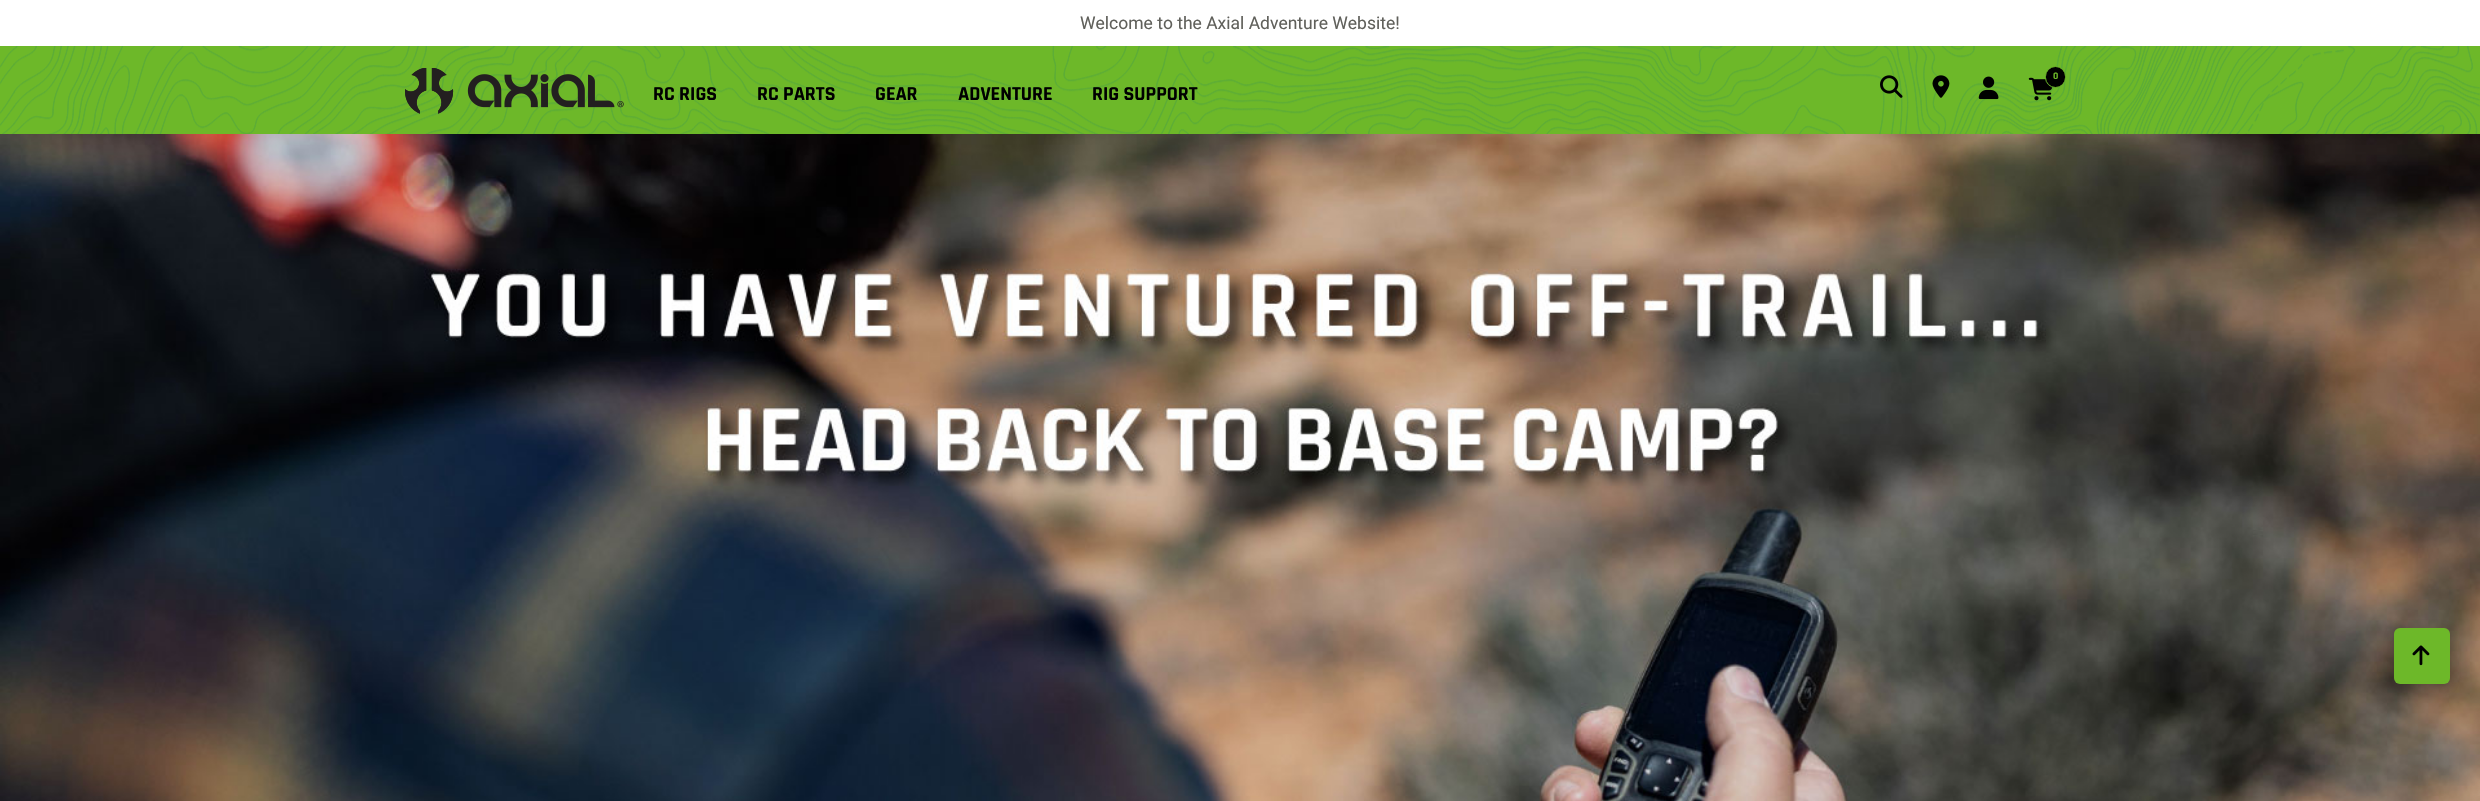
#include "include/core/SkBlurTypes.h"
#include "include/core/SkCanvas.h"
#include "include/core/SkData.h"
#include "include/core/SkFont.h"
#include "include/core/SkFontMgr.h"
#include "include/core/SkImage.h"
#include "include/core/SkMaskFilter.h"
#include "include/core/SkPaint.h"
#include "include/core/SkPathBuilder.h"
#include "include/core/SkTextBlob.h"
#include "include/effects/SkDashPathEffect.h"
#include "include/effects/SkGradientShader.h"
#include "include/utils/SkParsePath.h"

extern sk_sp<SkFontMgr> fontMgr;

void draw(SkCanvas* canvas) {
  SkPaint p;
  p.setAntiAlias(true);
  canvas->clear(SK_ColorWHITE);
  p.setColor(SkColorSetRGB(109, 184, 41));
  canvas->drawRect(SkRect::MakeLTRB(0, 46, 2480, 134), p);
  canvas->drawImageRect(SkImages::DeferredFromEncodedData(SkData::MakeFromFileName("images/1.png")), SkRect::MakeLTRB(0, 46, 2480, 134), SkSamplingOptions());
  canvas->drawImageRect(SkImages::DeferredFromEncodedData(SkData::MakeFromFileName("images/2.png")), SkRect::MakeLTRB(405, 68, 624, 114), SkSamplingOptions());
  canvas->drawImageRect(SkImages::DeferredFromEncodedData(SkData::MakeFromFileName("images/3.png")), SkRect::MakeLTRB(1880, 75, 1903, 98), SkSamplingOptions());
  canvas->drawImageRect(SkImages::DeferredFromEncodedData(SkData::MakeFromFileName("images/4.png")), SkRect::MakeLTRB(1932, 75, 1950, 98), SkSamplingOptions());
  canvas->drawImageRect(SkImages::DeferredFromEncodedData(SkData::MakeFromFileName("images/5.png")), SkRect::MakeLTRB(1978, 76, 1999, 100), SkSamplingOptions());
  canvas->drawImageRect(SkImages::DeferredFromEncodedData(SkData::MakeFromFileName("images/6.png")), SkRect::MakeLTRB(2028, 77, 2053, 101), SkSamplingOptions());
  p.setColor(SK_ColorBLACK);
  canvas->drawRoundRect(SkRect::MakeLTRB(2045.5f, 66.5f, 2065.5f, 87.5f), 10, 10, p);
  p.setStyle(SkPaint::kStroke_Style);
  p.setStrokeWidth(1);
  p.setColor(SkColorSetRGB(109, 184, 41));
  canvas->drawRoundRect(SkRect::MakeLTRB(2045.5f, 66.5f, 2065.5f, 87.5f), 10, 10, p);
  canvas->drawImageRect(SkImages::DeferredFromEncodedData(SkData::MakeFromFileName("images/7.png")), SkRect::MakeLTRB(0, 134, 2480, 801), SkSamplingOptions());
  p.setStyle(SkPaint::kFill_Style);
  p.setColor(SkColorSetARGB(51, 0, 0, 0));
  p.setMaskFilter(SkMaskFilter::MakeBlur(kNormal_SkBlurStyle, 6));
  canvas->drawRoundRect(SkRect::MakeLTRB(2394, 630, 2450, 686), 6, 6, p);
  p.setMaskFilter(nullptr);
  p.setColor(SkColorSetRGB(109, 184, 41));
  canvas->drawRoundRect(SkRect::MakeLTRB(2394, 628, 2450, 684), 6, 6, p);
  canvas->drawImageRect(SkImages::DeferredFromEncodedData(SkData::MakeFromFileName("images/8.png")), SkRect::MakeLTRB(2412, 645, 2430, 666), SkSamplingOptions());
  SkFont font1(fontMgr->matchFamilyStyle("Roboto", SkFontStyle::Normal()), 17.5f);
  font1.setSubpixel(true);
  p.setColor(SkColorSetRGB(96, 96, 91));
  canvas->drawString("Welcome to the Axial Adventure Website!", 1080, 29, font1, p);
  SkFont font2(fontMgr->matchFamilyStyle("Rajdhani", SkFontStyle::Bold()), 10);
  font2.setSubpixel(true);
  p.setColor(SkColorSetRGB(109, 184, 41));
  canvas->drawString("0", 2053, 79, font2, p);
  SkFont font3(fontMgr->matchFamilyStyle("Rajdhani", SkFontStyle::Bold()), 20);
  font3.setSubpixel(true);
  p.setColor(SK_ColorBLACK);
  canvas->drawString("RC RIGS", 653, 100, font3, p);
  canvas->drawString("RC PARTS", 757, 100, font3, p);
  canvas->drawString("GEAR", 875, 100, font3, p);
  canvas->drawString("ADVENTURE", 958, 100, font3, p);
  canvas->drawString("RIG SUPPORT", 1092, 100, font3, p);
}
